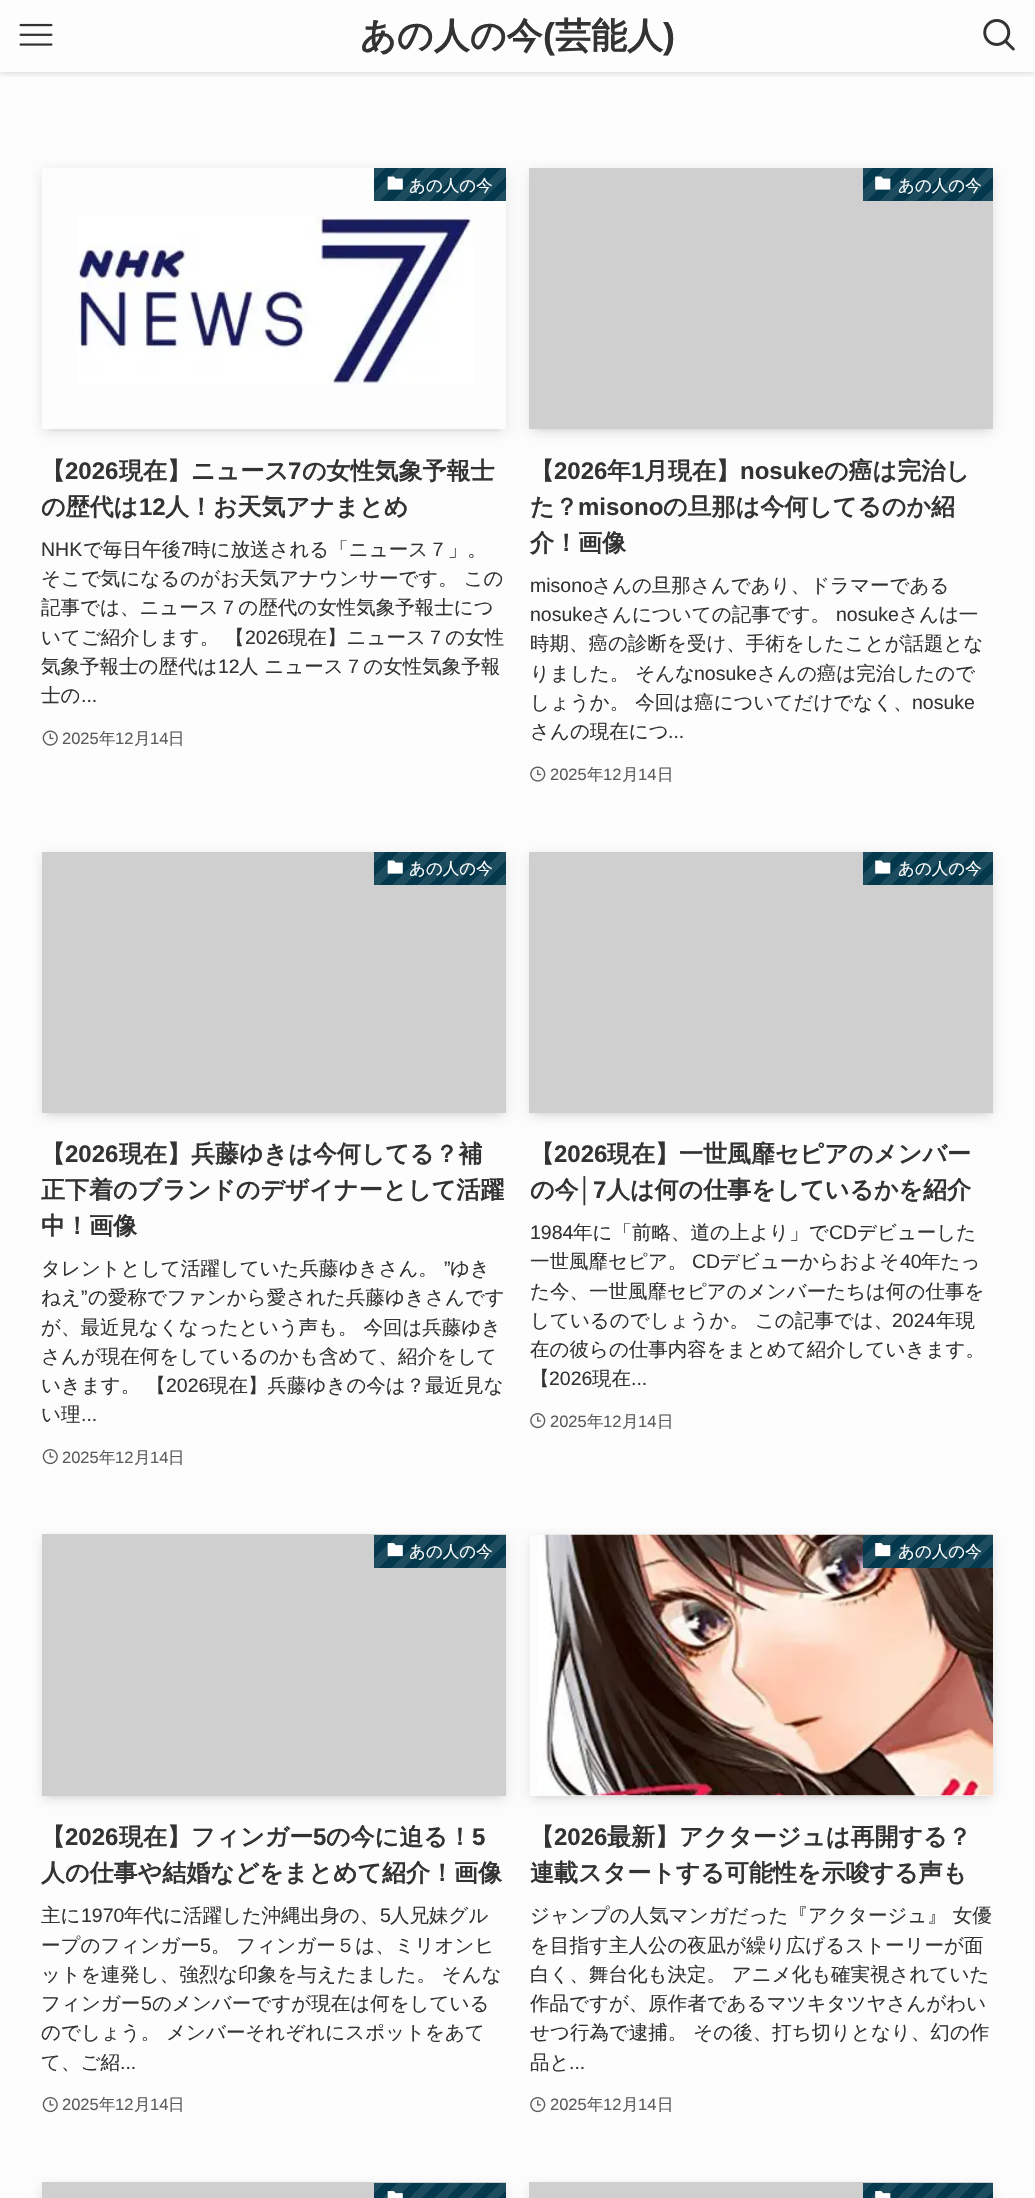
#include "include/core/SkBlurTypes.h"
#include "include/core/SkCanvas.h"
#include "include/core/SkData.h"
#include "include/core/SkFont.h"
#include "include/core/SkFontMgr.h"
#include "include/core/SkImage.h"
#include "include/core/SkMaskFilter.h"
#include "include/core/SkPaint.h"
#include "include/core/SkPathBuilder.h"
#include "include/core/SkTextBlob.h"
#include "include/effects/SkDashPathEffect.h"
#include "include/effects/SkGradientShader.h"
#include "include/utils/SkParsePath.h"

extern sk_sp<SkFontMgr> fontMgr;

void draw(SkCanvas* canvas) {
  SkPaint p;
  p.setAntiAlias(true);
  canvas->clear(SkColorSetRGB(253, 253, 253));
  canvas->save();
  canvas->clipRect(SkRect::MakeLTRB(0, 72, 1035, 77));
  p.setColor(SkColorSetARGB(31, 0, 0, 0));
  p.setMaskFilter(SkMaskFilter::MakeBlur(kNormal_SkBlurStyle, 3));
  canvas->drawRect(SkRect::MakeLTRB(0, 2, 1035, 74), p);
  p.setMaskFilter(nullptr);
  canvas->restore();
  canvas->drawImageRect(SkImages::DeferredFromEncodedData(SkData::MakeFromFileName("images/1.png")), SkRect::MakeLTRB(19, 23, 53, 46), SkSamplingOptions());
  canvas->drawImageRect(SkImages::DeferredFromEncodedData(SkData::MakeFromFileName("images/2.png")), SkRect::MakeLTRB(983, 19, 1015, 51), SkSamplingOptions());
  canvas->save();
  canvas->clipRect(SkRect::MakeLTRB(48, 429, 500, 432));
  p.setColor(SkColorSetARGB(26, 0, 0, 0));
  p.setMaskFilter(SkMaskFilter::MakeBlur(kNormal_SkBlurStyle, 3));
  canvas->drawRect(SkRect::MakeLTRB(48, 180, 500, 429), p);
  p.setMaskFilter(nullptr);
  canvas->restore();
  canvas->save();
  canvas->clipPath(SkPathBuilder(SkPathFillType::kEvenOdd).moveTo(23, 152).lineTo(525, 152).lineTo(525, 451).lineTo(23, 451).close().moveTo(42, 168).lineTo(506, 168).lineTo(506, 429).lineTo(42, 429).close().detach(), true);
  p.setMaskFilter(SkMaskFilter::MakeBlur(kNormal_SkBlurStyle, 6));
  canvas->drawRect(SkRect::MakeLTRB(42, 171, 506, 432), p);
  p.setMaskFilter(nullptr);
  canvas->restore();
  {
    const SkColor colors[] = {SkColorSetRGB(29, 76, 94), SkColorSetRGB(29, 76, 94), SkColorSetRGB(4, 56, 76), SkColorSetRGB(4, 56, 76), SkColorSetRGB(29, 76, 94), SkColorSetRGB(29, 76, 94), SkColorSetRGB(4, 56, 76), SkColorSetRGB(4, 56, 76), SkColorSetRGB(29, 76, 94), SkColorSetRGB(29, 76, 94), SkColorSetRGB(4, 56, 76), SkColorSetRGB(4, 56, 76), SkColorSetRGB(29, 76, 94), SkColorSetRGB(29, 76, 94), SkColorSetRGB(4, 56, 76), SkColorSetRGB(4, 56, 76), SkColorSetRGB(29, 76, 94), SkColorSetRGB(29, 76, 94), SkColorSetRGB(4, 56, 76), SkColorSetRGB(4, 56, 76), SkColorSetRGB(29, 76, 94), SkColorSetRGB(29, 76, 94), SkColorSetRGB(4, 56, 76), SkColorSetRGB(4, 56, 76), SkColorSetRGB(29, 76, 94), SkColorSetRGB(29, 76, 94), SkColorSetRGB(4, 56, 76), SkColorSetRGB(4, 56, 76)};
    const float stops[] = {0, 0.07f, 0.07f, 0.14f, 0.14f, 0.21f, 0.21f, 0.29f, 0.29f, 0.36f, 0.36f, 0.43f, 0.43f, 0.5f, 0.5f, 0.57f, 0.57f, 0.64f, 0.64f, 0.71f, 0.71f, 0.79f, 0.79f, 0.86f, 0.86f, 0.93f, 0.93f, 1};
    const SkPoint ends[] = {{481, 226}, {392, 137}};
    p.setShader(SkGradientShader::MakeLinear(ends, colors, stops, 28, SkTileMode::kClamp));
    p.setAlpha(255);
  }
  canvas->drawRect(SkRect::MakeLTRB(374, 168, 506, 201), p);
  canvas->drawImageRect(SkImages::DeferredFromEncodedData(SkData::MakeFromFileName("images/3.png")), SkRect::MakeLTRB(387, 176, 403, 190), SkSamplingOptions());
  canvas->drawImageRect(SkImages::DeferredFromEncodedData(SkData::MakeFromFileName("images/4.png")), SkRect::MakeLTRB(78, 216, 474, 384), SkSamplingOptions());
  canvas->drawImageRect(SkImages::DeferredFromEncodedData(SkData::MakeFromFileName("images/5.png")), SkRect::MakeLTRB(42, 730, 58, 746), SkSamplingOptions());
  p.setShader(nullptr);
  p.setColor(SkColorSetARGB(26, 0, 0, 0));
  p.setMaskFilter(SkMaskFilter::MakeBlur(kNormal_SkBlurStyle, 3));
  canvas->drawRect(SkRect::MakeLTRB(536, 180, 987, 429), p);
  p.setMaskFilter(nullptr);
  p.setMaskFilter(SkMaskFilter::MakeBlur(kNormal_SkBlurStyle, 6));
  canvas->drawRect(SkRect::MakeLTRB(530, 171, 993, 432), p);
  p.setMaskFilter(nullptr);
  p.setColor(SkColorSetRGB(207, 207, 207));
  canvas->drawRect(SkRect::MakeLTRB(529, 168, 993, 429), p);
  {
    const SkColor colors[] = {SkColorSetRGB(29, 76, 94), SkColorSetRGB(29, 76, 94), SkColorSetRGB(4, 56, 76), SkColorSetRGB(4, 56, 76), SkColorSetRGB(29, 76, 94), SkColorSetRGB(29, 76, 94), SkColorSetRGB(4, 56, 76), SkColorSetRGB(4, 56, 76), SkColorSetRGB(29, 76, 94), SkColorSetRGB(29, 76, 94), SkColorSetRGB(4, 56, 76), SkColorSetRGB(4, 56, 76), SkColorSetRGB(29, 76, 94), SkColorSetRGB(29, 76, 94), SkColorSetRGB(4, 56, 76), SkColorSetRGB(4, 56, 76), SkColorSetRGB(29, 76, 94), SkColorSetRGB(29, 76, 94), SkColorSetRGB(4, 56, 76), SkColorSetRGB(4, 56, 76), SkColorSetRGB(29, 76, 94), SkColorSetRGB(29, 76, 94), SkColorSetRGB(4, 56, 76), SkColorSetRGB(4, 56, 76), SkColorSetRGB(29, 76, 94), SkColorSetRGB(29, 76, 94), SkColorSetRGB(4, 56, 76), SkColorSetRGB(4, 56, 76)};
    const float stops[] = {0, 0.07f, 0.07f, 0.14f, 0.14f, 0.21f, 0.21f, 0.29f, 0.29f, 0.36f, 0.36f, 0.43f, 0.43f, 0.5f, 0.5f, 0.57f, 0.57f, 0.64f, 0.64f, 0.71f, 0.71f, 0.79f, 0.79f, 0.86f, 0.86f, 0.93f, 0.93f, 1};
    const SkPoint ends[] = {{969, 225}, {880, 136}};
    p.setShader(SkGradientShader::MakeLinear(ends, colors, stops, 28, SkTileMode::kClamp));
    p.setAlpha(255);
  }
  canvas->drawRect(SkRect::MakeLTRB(863, 168, 993, 201), p);
  canvas->drawImageRect(SkImages::DeferredFromEncodedData(SkData::MakeFromFileName("images/6.png")), SkRect::MakeLTRB(875, 176, 891, 190), SkSamplingOptions());
  canvas->drawImageRect(SkImages::DeferredFromEncodedData(SkData::MakeFromFileName("images/7.png")), SkRect::MakeLTRB(530, 766, 546, 782), SkSamplingOptions());
  p.setShader(nullptr);
  p.setColor(SkColorSetARGB(26, 0, 0, 0));
  p.setMaskFilter(SkMaskFilter::MakeBlur(kNormal_SkBlurStyle, 3));
  canvas->drawRect(SkRect::MakeLTRB(48, 864, 500, 1113), p);
  p.setMaskFilter(nullptr);
  p.setMaskFilter(SkMaskFilter::MakeBlur(kNormal_SkBlurStyle, 6));
  canvas->drawRect(SkRect::MakeLTRB(42, 855, 506, 1116), p);
  p.setMaskFilter(nullptr);
  p.setColor(SkColorSetRGB(207, 207, 207));
  canvas->drawRect(SkRect::MakeLTRB(42, 852, 506, 1113), p);
  {
    const SkColor colors[] = {SkColorSetRGB(29, 76, 94), SkColorSetRGB(29, 76, 94), SkColorSetRGB(4, 56, 76), SkColorSetRGB(4, 56, 76), SkColorSetRGB(29, 76, 94), SkColorSetRGB(29, 76, 94), SkColorSetRGB(4, 56, 76), SkColorSetRGB(4, 56, 76), SkColorSetRGB(29, 76, 94), SkColorSetRGB(29, 76, 94), SkColorSetRGB(4, 56, 76), SkColorSetRGB(4, 56, 76), SkColorSetRGB(29, 76, 94), SkColorSetRGB(29, 76, 94), SkColorSetRGB(4, 56, 76), SkColorSetRGB(4, 56, 76), SkColorSetRGB(29, 76, 94), SkColorSetRGB(29, 76, 94), SkColorSetRGB(4, 56, 76), SkColorSetRGB(4, 56, 76), SkColorSetRGB(29, 76, 94), SkColorSetRGB(29, 76, 94), SkColorSetRGB(4, 56, 76), SkColorSetRGB(4, 56, 76), SkColorSetRGB(29, 76, 94), SkColorSetRGB(29, 76, 94), SkColorSetRGB(4, 56, 76), SkColorSetRGB(4, 56, 76)};
    const float stops[] = {0, 0.07f, 0.07f, 0.14f, 0.14f, 0.21f, 0.21f, 0.29f, 0.29f, 0.36f, 0.36f, 0.43f, 0.43f, 0.5f, 0.5f, 0.57f, 0.57f, 0.64f, 0.64f, 0.71f, 0.71f, 0.79f, 0.79f, 0.86f, 0.86f, 0.93f, 0.93f, 1};
    const SkPoint ends[] = {{481, 910}, {392, 821}};
    p.setShader(SkGradientShader::MakeLinear(ends, colors, stops, 28, SkTileMode::kClamp));
    p.setAlpha(255);
  }
  canvas->drawRect(SkRect::MakeLTRB(374, 852, 506, 885), p);
  canvas->drawImageRect(SkImages::DeferredFromEncodedData(SkData::MakeFromFileName("images/3.png")), SkRect::MakeLTRB(387, 860, 403, 874), SkSamplingOptions());
  canvas->drawImageRect(SkImages::DeferredFromEncodedData(SkData::MakeFromFileName("images/8.png")), SkRect::MakeLTRB(42, 1449, 58, 1465), SkSamplingOptions());
  p.setShader(nullptr);
  p.setColor(SkColorSetARGB(26, 0, 0, 0));
  p.setMaskFilter(SkMaskFilter::MakeBlur(kNormal_SkBlurStyle, 3));
  canvas->drawRect(SkRect::MakeLTRB(536, 864, 987, 1113), p);
  p.setMaskFilter(nullptr);
  p.setMaskFilter(SkMaskFilter::MakeBlur(kNormal_SkBlurStyle, 6));
  canvas->drawRect(SkRect::MakeLTRB(530, 855, 993, 1116), p);
  p.setMaskFilter(nullptr);
  p.setColor(SkColorSetRGB(207, 207, 207));
  canvas->drawRect(SkRect::MakeLTRB(529, 852, 993, 1113), p);
  {
    const SkColor colors[] = {SkColorSetRGB(29, 76, 94), SkColorSetRGB(29, 76, 94), SkColorSetRGB(4, 56, 76), SkColorSetRGB(4, 56, 76), SkColorSetRGB(29, 76, 94), SkColorSetRGB(29, 76, 94), SkColorSetRGB(4, 56, 76), SkColorSetRGB(4, 56, 76), SkColorSetRGB(29, 76, 94), SkColorSetRGB(29, 76, 94), SkColorSetRGB(4, 56, 76), SkColorSetRGB(4, 56, 76), SkColorSetRGB(29, 76, 94), SkColorSetRGB(29, 76, 94), SkColorSetRGB(4, 56, 76), SkColorSetRGB(4, 56, 76), SkColorSetRGB(29, 76, 94), SkColorSetRGB(29, 76, 94), SkColorSetRGB(4, 56, 76), SkColorSetRGB(4, 56, 76), SkColorSetRGB(29, 76, 94), SkColorSetRGB(29, 76, 94), SkColorSetRGB(4, 56, 76), SkColorSetRGB(4, 56, 76), SkColorSetRGB(29, 76, 94), SkColorSetRGB(29, 76, 94), SkColorSetRGB(4, 56, 76), SkColorSetRGB(4, 56, 76)};
    const float stops[] = {0, 0.07f, 0.07f, 0.14f, 0.14f, 0.21f, 0.21f, 0.29f, 0.29f, 0.36f, 0.36f, 0.43f, 0.43f, 0.5f, 0.5f, 0.57f, 0.57f, 0.64f, 0.64f, 0.71f, 0.71f, 0.79f, 0.79f, 0.86f, 0.86f, 0.93f, 0.93f, 1};
    const SkPoint ends[] = {{969, 909}, {880, 820}};
    p.setShader(SkGradientShader::MakeLinear(ends, colors, stops, 28, SkTileMode::kClamp));
    p.setAlpha(255);
  }
  canvas->drawRect(SkRect::MakeLTRB(863, 852, 993, 885), p);
  canvas->drawImageRect(SkImages::DeferredFromEncodedData(SkData::MakeFromFileName("images/6.png")), SkRect::MakeLTRB(875, 860, 891, 874), SkSamplingOptions());
  canvas->drawImageRect(SkImages::DeferredFromEncodedData(SkData::MakeFromFileName("images/9.png")), SkRect::MakeLTRB(530, 1413, 546, 1429), SkSamplingOptions());
  p.setShader(nullptr);
  p.setColor(SkColorSetARGB(26, 0, 0, 0));
  p.setMaskFilter(SkMaskFilter::MakeBlur(kNormal_SkBlurStyle, 3));
  canvas->drawRect(SkRect::MakeLTRB(48, 1547, 500, 1796), p);
  p.setMaskFilter(nullptr);
  p.setMaskFilter(SkMaskFilter::MakeBlur(kNormal_SkBlurStyle, 6));
  canvas->drawRect(SkRect::MakeLTRB(42, 1538, 506, 1799), p);
  p.setMaskFilter(nullptr);
  p.setColor(SkColorSetRGB(207, 207, 207));
  canvas->drawRect(SkRect::MakeLTRB(42, 1534, 506, 1796), p);
  {
    const SkColor colors[] = {SkColorSetRGB(29, 76, 94), SkColorSetRGB(29, 76, 94), SkColorSetRGB(4, 56, 76), SkColorSetRGB(4, 56, 76), SkColorSetRGB(29, 76, 94), SkColorSetRGB(29, 76, 94), SkColorSetRGB(4, 56, 76), SkColorSetRGB(4, 56, 76), SkColorSetRGB(29, 76, 94), SkColorSetRGB(29, 76, 94), SkColorSetRGB(4, 56, 76), SkColorSetRGB(4, 56, 76), SkColorSetRGB(29, 76, 94), SkColorSetRGB(29, 76, 94), SkColorSetRGB(4, 56, 76), SkColorSetRGB(4, 56, 76), SkColorSetRGB(29, 76, 94), SkColorSetRGB(29, 76, 94), SkColorSetRGB(4, 56, 76), SkColorSetRGB(4, 56, 76), SkColorSetRGB(29, 76, 94), SkColorSetRGB(29, 76, 94), SkColorSetRGB(4, 56, 76), SkColorSetRGB(4, 56, 76), SkColorSetRGB(29, 76, 94), SkColorSetRGB(29, 76, 94), SkColorSetRGB(4, 56, 76), SkColorSetRGB(4, 56, 76)};
    const float stops[] = {0, 0.07f, 0.07f, 0.14f, 0.14f, 0.21f, 0.21f, 0.29f, 0.29f, 0.36f, 0.36f, 0.43f, 0.43f, 0.5f, 0.5f, 0.57f, 0.57f, 0.64f, 0.64f, 0.71f, 0.71f, 0.79f, 0.79f, 0.86f, 0.86f, 0.93f, 0.93f, 1};
    const SkPoint ends[] = {{481, 1592}, {392, 1503}};
    p.setShader(SkGradientShader::MakeLinear(ends, colors, stops, 28, SkTileMode::kClamp));
    p.setAlpha(255);
  }
  canvas->drawRect(SkRect::MakeLTRB(374, 1535, 506, 1568), p);
  canvas->drawImageRect(SkImages::DeferredFromEncodedData(SkData::MakeFromFileName("images/10.png")), SkRect::MakeLTRB(387, 1543, 403, 1557), SkSamplingOptions());
  canvas->drawImageRect(SkImages::DeferredFromEncodedData(SkData::MakeFromFileName("images/8.png")), SkRect::MakeLTRB(42, 2097, 58, 2113), SkSamplingOptions());
  canvas->save();
  canvas->clipPath(SkPathBuilder(SkPathFillType::kEvenOdd).moveTo(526, 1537).lineTo(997, 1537).lineTo(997, 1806).lineTo(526, 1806).close().moveTo(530, 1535).lineTo(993, 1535).lineTo(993, 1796).lineTo(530, 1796).close().detach(), true);
  p.setShader(nullptr);
  p.setColor(SkColorSetARGB(26, 0, 0, 0));
  p.setMaskFilter(SkMaskFilter::MakeBlur(kNormal_SkBlurStyle, 3));
  canvas->drawRect(SkRect::MakeLTRB(536, 1547, 987, 1796), p);
  p.setMaskFilter(nullptr);
  canvas->restore();
  canvas->save();
  canvas->clipPath(SkPathBuilder(SkPathFillType::kEvenOdd).moveTo(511, 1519).lineTo(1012, 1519).lineTo(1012, 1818).lineTo(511, 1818).close().moveTo(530, 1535).lineTo(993, 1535).lineTo(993, 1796).lineTo(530, 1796).close().detach(), true);
  p.setMaskFilter(SkMaskFilter::MakeBlur(kNormal_SkBlurStyle, 6));
  canvas->drawRect(SkRect::MakeLTRB(530, 1538, 993, 1799), p);
  p.setMaskFilter(nullptr);
  canvas->restore();
  canvas->drawImageRect(SkImages::DeferredFromEncodedData(SkData::MakeFromFileName("images/11.png")), SkRect::MakeLTRB(538, 1534, 993, 1796), SkSamplingOptions());
  {
    const SkColor colors[] = {SkColorSetRGB(29, 76, 94), SkColorSetRGB(29, 76, 94), SkColorSetRGB(4, 56, 76), SkColorSetRGB(4, 56, 76), SkColorSetRGB(29, 76, 94), SkColorSetRGB(29, 76, 94), SkColorSetRGB(4, 56, 76), SkColorSetRGB(4, 56, 76), SkColorSetRGB(29, 76, 94), SkColorSetRGB(29, 76, 94), SkColorSetRGB(4, 56, 76), SkColorSetRGB(4, 56, 76), SkColorSetRGB(29, 76, 94), SkColorSetRGB(29, 76, 94), SkColorSetRGB(4, 56, 76), SkColorSetRGB(4, 56, 76), SkColorSetRGB(29, 76, 94), SkColorSetRGB(29, 76, 94), SkColorSetRGB(4, 56, 76), SkColorSetRGB(4, 56, 76), SkColorSetRGB(29, 76, 94), SkColorSetRGB(29, 76, 94), SkColorSetRGB(4, 56, 76), SkColorSetRGB(4, 56, 76), SkColorSetRGB(29, 76, 94), SkColorSetRGB(29, 76, 94), SkColorSetRGB(4, 56, 76), SkColorSetRGB(4, 56, 76)};
    const float stops[] = {0, 0.07f, 0.07f, 0.14f, 0.14f, 0.21f, 0.21f, 0.29f, 0.29f, 0.36f, 0.36f, 0.43f, 0.43f, 0.5f, 0.5f, 0.57f, 0.57f, 0.64f, 0.64f, 0.71f, 0.71f, 0.79f, 0.79f, 0.86f, 0.86f, 0.93f, 0.93f, 1};
    const SkPoint ends[] = {{969, 1592}, {880, 1503}};
    p.setShader(SkGradientShader::MakeLinear(ends, colors, stops, 28, SkTileMode::kClamp));
    p.setAlpha(255);
  }
  canvas->drawRect(SkRect::MakeLTRB(863, 1535, 993, 1568), p);
  canvas->drawImageRect(SkImages::DeferredFromEncodedData(SkData::MakeFromFileName("images/12.png")), SkRect::MakeLTRB(875, 1543, 891, 1557), SkSamplingOptions());
  canvas->drawImageRect(SkImages::DeferredFromEncodedData(SkData::MakeFromFileName("images/9.png")), SkRect::MakeLTRB(530, 2097, 546, 2113), SkSamplingOptions());
  p.setShader(nullptr);
  p.setColor(SkColorSetARGB(26, 0, 0, 0));
  p.setMaskFilter(SkMaskFilter::MakeBlur(kNormal_SkBlurStyle, 6));
  canvas->drawRect(SkRect::MakeLTRB(42, 2186, 506, 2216), p);
  p.setMaskFilter(nullptr);
  p.setColor(SkColorSetRGB(207, 207, 207));
  canvas->drawRect(SkRect::MakeLTRB(42, 2182, 506, 2198), p);
  {
    const SkColor colors[] = {SkColorSetRGB(29, 76, 94), SkColorSetRGB(29, 76, 94), SkColorSetRGB(4, 56, 76), SkColorSetRGB(4, 56, 76), SkColorSetRGB(29, 76, 94), SkColorSetRGB(29, 76, 94), SkColorSetRGB(4, 56, 76), SkColorSetRGB(4, 56, 76), SkColorSetRGB(29, 76, 94), SkColorSetRGB(29, 76, 94), SkColorSetRGB(4, 56, 76), SkColorSetRGB(4, 56, 76), SkColorSetRGB(29, 76, 94), SkColorSetRGB(29, 76, 94), SkColorSetRGB(4, 56, 76), SkColorSetRGB(4, 56, 76), SkColorSetRGB(29, 76, 94), SkColorSetRGB(29, 76, 94), SkColorSetRGB(4, 56, 76), SkColorSetRGB(4, 56, 76), SkColorSetRGB(29, 76, 94), SkColorSetRGB(29, 76, 94), SkColorSetRGB(4, 56, 76), SkColorSetRGB(4, 56, 76), SkColorSetRGB(29, 76, 94), SkColorSetRGB(29, 76, 94), SkColorSetRGB(4, 56, 76), SkColorSetRGB(4, 56, 76)};
    const float stops[] = {0, 0.07f, 0.07f, 0.14f, 0.14f, 0.21f, 0.21f, 0.29f, 0.29f, 0.36f, 0.36f, 0.43f, 0.43f, 0.5f, 0.5f, 0.57f, 0.57f, 0.64f, 0.64f, 0.71f, 0.71f, 0.79f, 0.79f, 0.86f, 0.86f, 0.93f, 0.93f, 1};
    const SkPoint ends[] = {{481, 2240}, {392, 2151}};
    p.setShader(SkGradientShader::MakeLinear(ends, colors, stops, 28, SkTileMode::kClamp));
    p.setAlpha(255);
  }
  canvas->drawRect(SkRect::MakeLTRB(374, 2183, 506, 2198), p);
  canvas->drawImageRect(SkImages::DeferredFromEncodedData(SkData::MakeFromFileName("images/13.png")), SkRect::MakeLTRB(387, 2191, 403, 2198), SkSamplingOptions());
  p.setShader(nullptr);
  p.setColor(SkColorSetARGB(26, 0, 0, 0));
  p.setMaskFilter(SkMaskFilter::MakeBlur(kNormal_SkBlurStyle, 6));
  canvas->drawRect(SkRect::MakeLTRB(530, 2186, 993, 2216), p);
  p.setMaskFilter(nullptr);
  p.setColor(SkColorSetRGB(207, 207, 207));
  canvas->drawRect(SkRect::MakeLTRB(529, 2182, 993, 2198), p);
  {
    const SkColor colors[] = {SkColorSetRGB(29, 76, 94), SkColorSetRGB(29, 76, 94), SkColorSetRGB(4, 56, 76), SkColorSetRGB(4, 56, 76), SkColorSetRGB(29, 76, 94), SkColorSetRGB(29, 76, 94), SkColorSetRGB(4, 56, 76), SkColorSetRGB(4, 56, 76), SkColorSetRGB(29, 76, 94), SkColorSetRGB(29, 76, 94), SkColorSetRGB(4, 56, 76), SkColorSetRGB(4, 56, 76), SkColorSetRGB(29, 76, 94), SkColorSetRGB(29, 76, 94), SkColorSetRGB(4, 56, 76), SkColorSetRGB(4, 56, 76), SkColorSetRGB(29, 76, 94), SkColorSetRGB(29, 76, 94), SkColorSetRGB(4, 56, 76), SkColorSetRGB(4, 56, 76), SkColorSetRGB(29, 76, 94), SkColorSetRGB(29, 76, 94), SkColorSetRGB(4, 56, 76), SkColorSetRGB(4, 56, 76), SkColorSetRGB(29, 76, 94), SkColorSetRGB(29, 76, 94), SkColorSetRGB(4, 56, 76), SkColorSetRGB(4, 56, 76)};
    const float stops[] = {0, 0.07f, 0.07f, 0.14f, 0.14f, 0.21f, 0.21f, 0.29f, 0.29f, 0.36f, 0.36f, 0.43f, 0.43f, 0.5f, 0.5f, 0.57f, 0.57f, 0.64f, 0.64f, 0.71f, 0.71f, 0.79f, 0.79f, 0.86f, 0.86f, 0.93f, 0.93f, 1};
    const SkPoint ends[] = {{969, 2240}, {880, 2151}};
    p.setShader(SkGradientShader::MakeLinear(ends, colors, stops, 28, SkTileMode::kClamp));
    p.setAlpha(255);
  }
  canvas->drawRect(SkRect::MakeLTRB(863, 2183, 993, 2198), p);
  canvas->drawImageRect(SkImages::DeferredFromEncodedData(SkData::MakeFromFileName("images/14.png")), SkRect::MakeLTRB(875, 2191, 891, 2198), SkSamplingOptions());
  SkFont font1(fontMgr->matchFamilyStyle("WenQuanYi Zen Hei", SkFontStyle::Bold()), 36);
  font1.setSubpixel(true);
  p.setShader(nullptr);
  p.setColor(SkColorSetRGB(51, 51, 51));
  canvas->drawString("あの人の今", 360, 48, font1, p);
  SkFont font2(fontMgr->matchFamilyStyle("Liberation Sans", SkFontStyle::Bold()), 36);
  font2.setSubpixel(true);
  canvas->drawString("(", 543, 48, font2, p);
  canvas->drawString("芸能人", 555, 48, font1, p);
  canvas->drawString(")", 663, 48, font2, p);
  SkFont font3(fontMgr->matchFamilyStyle("WenQuanYi Zen Hei", SkFontStyle(500, SkFontStyle::kNormal_Width, SkFontStyle::kUpright_Slant)), 16.5f);
  font3.setSubpixel(true);
  p.setColor(SK_ColorWHITE);
  canvas->drawString("あの人の今", 409, 191, font3, p);
  SkFont font4(fontMgr->matchFamilyStyle("WenQuanYi Zen Hei", SkFontStyle::Bold()), 24);
  font4.setSubpixel(true);
  p.setColor(SkColorSetRGB(51, 51, 51));
  canvas->drawString("【", 41, 479, font4, p);
  SkFont font5(fontMgr->matchFamilyStyle("Liberation Sans", SkFontStyle::Bold()), 24);
  font5.setSubpixel(true);
  canvas->drawString("2026", 65, 479, font5, p);
  canvas->drawString("現在】ニュース", 119, 479, font4, p);
  canvas->drawString("7", 288, 479, font5, p);
  canvas->drawString("の女性気象予報士", 302, 479, font4, p);
  canvas->drawString("の歴代は", 41, 515, font4, p);
  canvas->drawString("12", 139, 515, font5, p);
  canvas->drawString("人！お天気アナまとめ", 165, 515, font4, p);
  SkFont font6(fontMgr->matchFamilyStyle("Liberation Sans", SkFontStyle::Normal()), 19.5f);
  font6.setSubpixel(true);
  canvas->drawString("NHK", 41, 556, font6, p);
  SkFont font7(fontMgr->matchFamilyStyle("WenQuanYi Zen Hei", SkFontStyle(500, SkFontStyle::kNormal_Width, SkFontStyle::kUpright_Slant)), 19.5f);
  font7.setSubpixel(true);
  canvas->drawString("で毎日午後", 83, 556, font7, p);
  canvas->drawString("7", 181, 556, font6, p);
  canvas->drawString("時に放送される「ニュース７」。", 191, 556, font7, p);
  canvas->drawString("そこで気になるのがお天気アナウンサーです。 この", 41, 585, font7, p);
  canvas->drawString("記事では、ニュース７の歴代の女性気象予報士につ", 41, 614, font7, p);
  canvas->drawString("いてご紹介します。 【", 41, 644, font7, p);
  canvas->drawString("2026", 245, 644, font6, p);
  canvas->drawString("現在】ニュース７の女性", 288, 644, font7, p);
  canvas->drawString("気象予報士の歴代は", 41, 673, font7, p);
  canvas->drawString("12", 218, 673, font6, p);
  canvas->drawString("人 ニュース７の女性気象予報", 239, 673, font7, p);
  canvas->drawString("士の", 41, 702, font7, p);
  canvas->drawString("...", 81, 702, font6, p);
  SkFont font8(fontMgr->matchFamilyStyle("Liberation Sans", SkFontStyle::Normal()), 16.5f);
  font8.setSubpixel(true);
  p.setColor(SkColorSetRGB(91, 91, 91));
  canvas->drawString("2025", 62, 744, font8, p);
  canvas->drawString("年", 99, 744, font3, p);
  canvas->drawString("12", 115, 744, font8, p);
  canvas->drawString("月", 134, 744, font3, p);
  canvas->drawString("14", 150, 744, font8, p);
  canvas->drawString("日", 168, 744, font3, p);
  p.setColor(SK_ColorWHITE);
  canvas->drawString("あの人の今", 898, 191, font3, p);
  p.setColor(SkColorSetRGB(51, 51, 51));
  canvas->drawString("【", 530, 479, font4, p);
  canvas->drawString("2026", 554, 479, font5, p);
  canvas->drawString("年", 607, 479, font4, p);
  canvas->drawString("1", 631, 479, font5, p);
  canvas->drawString("月現在】", 644, 479, font4, p);
  canvas->drawString("nosuke", 740, 479, font5, p);
  canvas->drawString("の癌は完治し", 824, 479, font4, p);
  canvas->drawString("た？", 530, 515, font4, p);
  canvas->drawString("misono", 578, 515, font5, p);
  canvas->drawString("の旦那は今何してるのか紹", 663, 515, font4, p);
  canvas->drawString("介！画像", 530, 551, font4, p);
  canvas->drawString("misono", 530, 592, font6, p);
  canvas->drawString("さんの旦那さんであり、ドラマーである", 592, 592, font7, p);
  canvas->drawString("nosuke", 530, 621, font6, p);
  canvas->drawString("さんについての記事です。", 592, 621, font7, p);
  canvas->drawString("nosuke", 836, 621, font6, p);
  canvas->drawString("さんは一", 899, 621, font7, p);
  canvas->drawString("時期、癌の診断を受け、手術をしたことが話題とな", 530, 650, font7, p);
  canvas->drawString("りました。 そんな", 530, 680, font7, p);
  canvas->drawString("nosuke", 694, 680, font6, p);
  canvas->drawString("さんの癌は完治したので", 757, 680, font7, p);
  canvas->drawString("しょうか。 今回は癌についてだけでなく、", 530, 709, font7, p);
  canvas->drawString("nosuke", 912, 709, font6, p);
  canvas->drawString("さんの現在につ", 530, 738, font7, p);
  canvas->drawString("...", 668, 738, font6, p);
  p.setColor(SkColorSetRGB(91, 91, 91));
  canvas->drawString("2025", 550, 780, font8, p);
  canvas->drawString("年", 587, 780, font3, p);
  canvas->drawString("12", 603, 780, font8, p);
  canvas->drawString("月", 622, 780, font3, p);
  canvas->drawString("14", 638, 780, font8, p);
  canvas->drawString("日", 657, 780, font3, p);
  p.setColor(SK_ColorWHITE);
  canvas->drawString("あの人の今", 409, 874, font3, p);
  p.setColor(SkColorSetRGB(51, 51, 51));
  canvas->drawString("【", 41, 1162, font4, p);
  canvas->drawString("2026", 65, 1162, font5, p);
  canvas->drawString("現在】兵藤ゆきは今何してる？補", 119, 1162, font4, p);
  canvas->drawString("正下着のブランドのデザイナーとして活躍", 41, 1198, font4, p);
  canvas->drawString("中！画像", 41, 1234, font4, p);
  canvas->drawString("タレントとして活躍していた兵藤ゆきさん。", 41, 1275, font7, p);
  canvas->drawString("”", 444, 1275, font6, p);
  canvas->drawString("ゆき", 450, 1275, font7, p);
  canvas->drawString("ねえ", 41, 1304, font7, p);
  canvas->drawString("”", 81, 1304, font6, p);
  canvas->drawString("の愛称でファンから愛された兵藤ゆきさんです", 88, 1304, font7, p);
  canvas->drawString("が、最近見なくなったという声も。 今回は兵藤ゆき", 41, 1334, font7, p);
  canvas->drawString("さんが現在何をしているのかも含めて、紹介をして", 41, 1363, font7, p);
  canvas->drawString("いきます。 【", 41, 1392, font7, p);
  canvas->drawString("2026", 166, 1392, font6, p);
  canvas->drawString("現在】兵藤ゆきの今は？最近見な", 209, 1392, font7, p);
  canvas->drawString("い理", 41, 1421, font7, p);
  canvas->drawString("...", 81, 1421, font6, p);
  p.setColor(SkColorSetRGB(91, 91, 91));
  canvas->drawString("2025", 62, 1463, font8, p);
  canvas->drawString("年", 99, 1463, font3, p);
  canvas->drawString("12", 115, 1463, font8, p);
  canvas->drawString("月", 134, 1463, font3, p);
  canvas->drawString("14", 150, 1463, font8, p);
  canvas->drawString("日", 168, 1463, font3, p);
  p.setColor(SK_ColorWHITE);
  canvas->drawString("あの人の今", 898, 874, font3, p);
  p.setColor(SkColorSetRGB(51, 51, 51));
  canvas->drawString("【", 530, 1162, font4, p);
  canvas->drawString("2026", 554, 1162, font5, p);
  canvas->drawString("現在】一世風靡セピアのメンバー", 607, 1162, font4, p);
  canvas->drawString("の今", 530, 1198, font4, p);
  canvas->drawString("│7", 578, 1198, font5, p);
  canvas->drawString("人は何の仕事をしているかを紹介", 606, 1198, font4, p);
  canvas->drawString("1984", 530, 1239, font6, p);
  canvas->drawString("年に「前略、道の上より」で", 573, 1239, font7, p);
  canvas->drawString("CD", 829, 1239, font6, p);
  canvas->drawString("デビューした", 857, 1239, font7, p);
  canvas->drawString("一世風靡セピア。", 530, 1268, font7, p);
  canvas->drawString("CD", 692, 1268, font6, p);
  canvas->drawString("デビューからおよそ", 720, 1268, font7, p);
  canvas->drawString("40", 900, 1268, font6, p);
  canvas->drawString("年たっ", 921, 1268, font7, p);
  canvas->drawString("た今、一世風靡セピアのメンバーたちは何の仕事を", 530, 1298, font7, p);
  canvas->drawString("しているのでしょうか。 この記事では、", 530, 1327, font7, p);
  canvas->drawString("2024", 892, 1327, font6, p);
  canvas->drawString("年現", 936, 1327, font7, p);
  canvas->drawString("在の彼らの仕事内容をまとめて紹介していきます。", 530, 1356, font7, p);
  canvas->drawString("【", 530, 1385, font7, p);
  canvas->drawString("2026", 549, 1385, font6, p);
  canvas->drawString("現在", 592, 1385, font7, p);
  canvas->drawString("...", 631, 1385, font6, p);
  p.setColor(SkColorSetRGB(91, 91, 91));
  canvas->drawString("2025", 550, 1427, font8, p);
  canvas->drawString("年", 587, 1427, font3, p);
  canvas->drawString("12", 603, 1427, font8, p);
  canvas->drawString("月", 622, 1427, font3, p);
  canvas->drawString("14", 638, 1427, font8, p);
  canvas->drawString("日", 657, 1427, font3, p);
  p.setColor(SK_ColorWHITE);
  canvas->drawString("あの人の今", 409, 1557, font3, p);
  p.setColor(SkColorSetRGB(51, 51, 51));
  canvas->drawString("【", 41, 1845, font4, p);
  canvas->drawString("2026", 65, 1845, font5, p);
  canvas->drawString("現在】フィンガー", 119, 1845, font4, p);
  canvas->drawString("5", 313, 1845, font5, p);
  canvas->drawString("の今に迫る！", 326, 1845, font4, p);
  canvas->drawString("5", 472, 1845, font5, p);
  canvas->drawString("人の仕事や結婚などをまとめて紹介！画像", 41, 1881, font4, p);
  canvas->drawString("主に", 41, 1922, font7, p);
  canvas->drawString("1970", 81, 1922, font6, p);
  canvas->drawString("年代に活躍した沖縄出身の、", 124, 1922, font7, p);
  canvas->drawString("5", 380, 1922, font6, p);
  canvas->drawString("人兄妹グル", 390, 1922, font7, p);
  canvas->drawString("ープのフィンガー", 41, 1952, font7, p);
  canvas->drawString("5", 200, 1952, font6, p);
  canvas->drawString("。 フィンガー５は、ミリオンヒ", 211, 1952, font7, p);
  canvas->drawString("ットを連発し、強烈な印象を与えたました。 そんな", 41, 1981, font7, p);
  canvas->drawString("フィンガー", 41, 2010, font7, p);
  canvas->drawString("5", 141, 2010, font6, p);
  canvas->drawString("のメンバーですが現在は何をしている", 152, 2010, font7, p);
  canvas->drawString("のでしょう。 メンバーそれぞれにスポットをあて", 41, 2039, font7, p);
  canvas->drawString("て、ご紹", 41, 2069, font7, p);
  canvas->drawString("...", 120, 2069, font6, p);
  p.setColor(SkColorSetRGB(91, 91, 91));
  canvas->drawString("2025", 62, 2110, font8, p);
  canvas->drawString("年", 99, 2110, font3, p);
  canvas->drawString("12", 115, 2110, font8, p);
  canvas->drawString("月", 134, 2110, font3, p);
  canvas->drawString("14", 150, 2110, font8, p);
  canvas->drawString("日", 168, 2110, font3, p);
  p.setColor(SK_ColorWHITE);
  canvas->drawString("あの人の今", 898, 1557, font3, p);
  p.setColor(SkColorSetRGB(51, 51, 51));
  canvas->drawString("【", 530, 1845, font4, p);
  canvas->drawString("2026", 554, 1845, font5, p);
  canvas->drawString("最新】アクタージュは再開する？", 607, 1845, font4, p);
  canvas->drawString("連載スタートする可能性を示唆する声も", 530, 1881, font4, p);
  canvas->drawString("ジャンプの人気マンガだった『アクタージュ』 女優", 530, 1922, font7, p);
  canvas->drawString("を目指す主人公の夜凪が繰り広げるストーリーが面", 530, 1952, font7, p);
  canvas->drawString("白く、舞台化も決定。 アニメ化も確実視されていた", 530, 1981, font7, p);
  canvas->drawString("作品ですが、原作者であるマツキタツヤさんがわい", 530, 2010, font7, p);
  canvas->drawString("せつ行為で逮捕。 その後、打ち切りとなり、幻の作", 530, 2039, font7, p);
  canvas->drawString("品と", 530, 2069, font7, p);
  canvas->drawString("...", 569, 2069, font6, p);
  p.setColor(SkColorSetRGB(91, 91, 91));
  canvas->drawString("2025", 550, 2110, font8, p);
  canvas->drawString("年", 587, 2110, font3, p);
  canvas->drawString("12", 603, 2110, font8, p);
  canvas->drawString("月", 622, 2110, font3, p);
  canvas->drawString("14", 638, 2110, font8, p);
  canvas->drawString("日", 657, 2110, font3, p);
}
